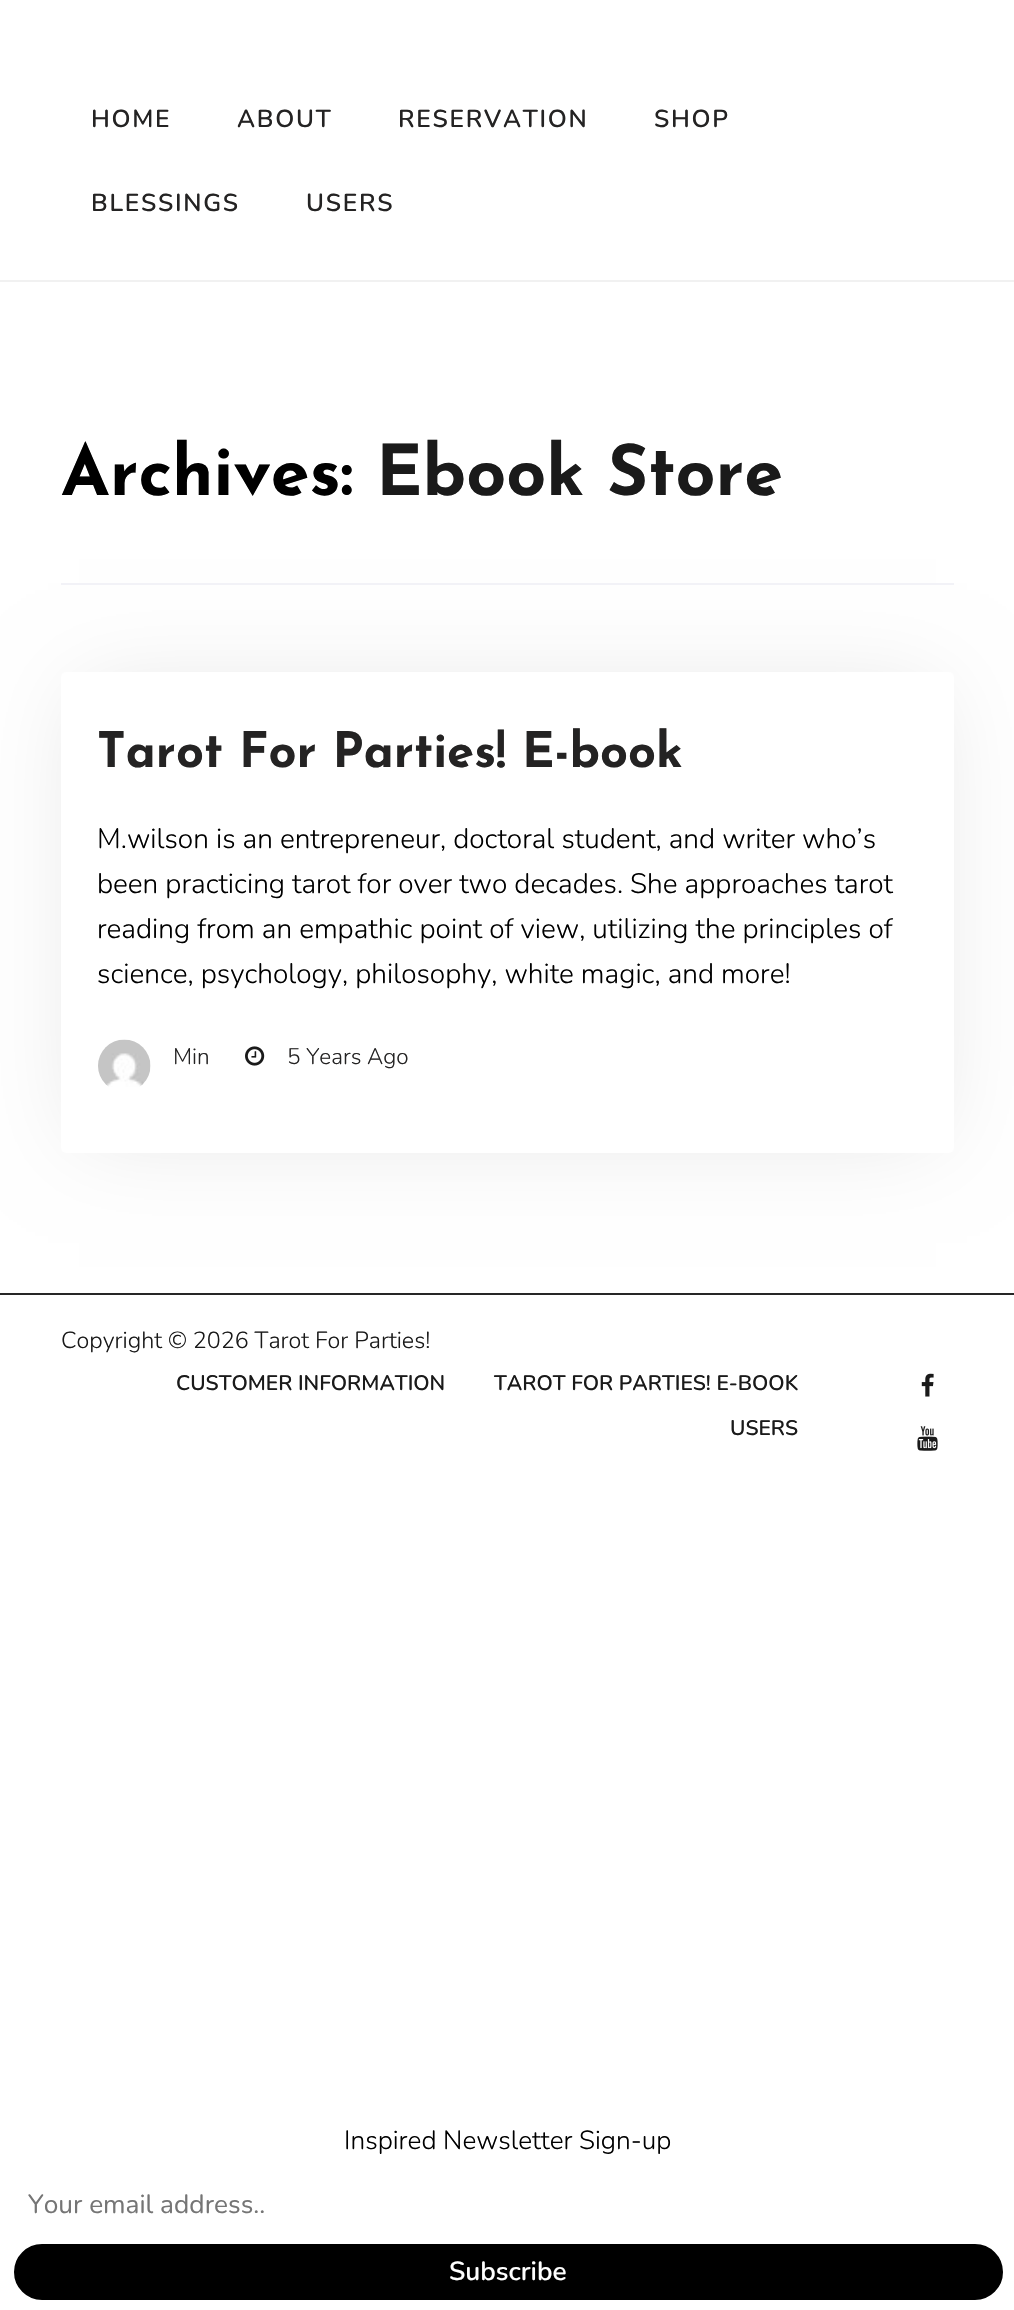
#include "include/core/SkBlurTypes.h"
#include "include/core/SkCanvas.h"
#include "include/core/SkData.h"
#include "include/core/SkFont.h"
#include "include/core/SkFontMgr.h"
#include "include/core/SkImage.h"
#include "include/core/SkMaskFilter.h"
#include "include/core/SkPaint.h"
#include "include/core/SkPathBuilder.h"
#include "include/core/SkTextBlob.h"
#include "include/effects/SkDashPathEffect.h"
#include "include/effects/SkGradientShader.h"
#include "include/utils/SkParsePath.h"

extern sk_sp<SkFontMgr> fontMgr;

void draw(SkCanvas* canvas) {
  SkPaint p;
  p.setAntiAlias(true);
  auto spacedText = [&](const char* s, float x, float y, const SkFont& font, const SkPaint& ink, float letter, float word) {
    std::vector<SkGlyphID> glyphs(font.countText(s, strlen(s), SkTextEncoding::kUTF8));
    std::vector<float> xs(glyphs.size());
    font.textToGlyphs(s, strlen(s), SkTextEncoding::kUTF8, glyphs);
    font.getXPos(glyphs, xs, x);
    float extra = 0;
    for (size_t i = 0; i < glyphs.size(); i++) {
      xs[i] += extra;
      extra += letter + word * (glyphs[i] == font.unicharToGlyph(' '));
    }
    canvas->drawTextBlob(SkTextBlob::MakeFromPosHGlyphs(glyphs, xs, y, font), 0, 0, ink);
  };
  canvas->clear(SK_ColorWHITE);
  p.setColor(SkColorSetRGB(241, 241, 241));
  canvas->drawRect(SkRect::MakeLTRB(0, 280, 1014, 282), p);
  p.setColor(SkColorSetRGB(243, 243, 248));
  canvas->drawRect(SkRect::MakeLTRB(61, 583, 954, 585), p);
  p.setColor(SkColorSetARGB(26, 0, 0, 0));
  p.setMaskFilter(SkMaskFilter::MakeBlur(kNormal_SkBlurStyle, 44));
  canvas->drawRect(SkRect::MakeLTRB(79, 690, 936, 1136), p);
  p.setMaskFilter(nullptr);
  p.setColor(SK_ColorWHITE);
  canvas->drawRoundRect(SkRect::MakeLTRB(61, 672, 954, 1153), 5, 5, p);
  canvas->drawImageRect(SkImages::DeferredFromEncodedData(SkData::MakeFromFileName("images/1.png")), SkRect::MakeLTRB(98, 1039, 151, 1087), SkSamplingOptions());
  canvas->drawImageRect(SkImages::DeferredFromEncodedData(SkData::MakeFromFileName("images/2.png")), SkRect::MakeLTRB(245, 1046, 265, 1066), SkSamplingOptions());
  p.setColor(SkColorSetRGB(38, 38, 38));
  canvas->drawRect(SkRect::MakeLTRB(0, 1293, 1014, 1295), p);
  canvas->drawImageRect(SkImages::DeferredFromEncodedData(SkData::MakeFromFileName("images/3.png")), SkRect::MakeLTRB(921, 1373, 934, 1397), SkSamplingOptions());
  canvas->drawImageRect(SkImages::DeferredFromEncodedData(SkData::MakeFromFileName("images/4.png")), SkRect::MakeLTRB(917, 1426, 938, 1451), SkSamplingOptions());
  p.setColor(SK_ColorBLACK);
  canvas->drawRoundRect(SkRect::MakeLTRB(15, 2245, 1002, 2299), 27, 27, p);
  p.setStyle(SkPaint::kStroke_Style);
  p.setStrokeWidth(2);
  canvas->drawRoundRect(SkRect::MakeLTRB(15, 2245, 1002, 2299), 27, 27, p);
  SkFont font1(fontMgr->matchFamilyStyle("Nunito", SkFontStyle(600, SkFontStyle::kNormal_Width, SkFontStyle::kUpright_Slant)), 24.5f);
  font1.setSubpixel(true);
  p.setStyle(SkPaint::kFill_Style);
  p.setColor(SkColorSetRGB(36, 35, 35));
  spacedText("HOME", 91, 127, font1, p, 1.75f, 0);
  spacedText("ABOUT", 237, 127, font1, p, 1.75f, 0);
  spacedText("RESERVATION", 398, 127, font1, p, 1.75f, 0);
  spacedText("SHOP", 654, 127, font1, p, 1.75f, 0);
  spacedText("BLESSINGS", 91, 211, font1, p, 1.75f, 0);
  spacedText("USERS", 306, 211, font1, p, 1.75f, 0);
  SkFont font2(fontMgr->matchFamilyStyle("Josefin Sans", SkFontStyle::Bold()), 70);
  font2.setSubpixel(true);
  p.setColor(SK_ColorBLACK);
  canvas->drawString("Archives:", 61, 495, font2, p);
  p.setColor(SkColorSetRGB(26, 26, 26));
  canvas->drawString("Ebook Store", 376, 495, font2, p);
  SkFont font3(fontMgr->matchFamilyStyle("Josefin Sans", SkFontStyle::Bold()), 49);
  font3.setSubpixel(true);
  p.setColor(SkColorSetRGB(36, 35, 35));
  canvas->drawString("Tarot For Parties! E-book", 97, 767, font3, p);
  SkFont font4(fontMgr->matchFamilyStyle("Nunito", SkFontStyle(300, SkFontStyle::kNormal_Width, SkFontStyle::kUpright_Slant)), 28);
  font4.setSubpixel(true);
  p.setColor(SK_ColorBLACK);
  canvas->drawString("M.wilson is an entrepreneur, doctoral student, and writer who’s", 97, 848, font4, p);
  canvas->drawString("been practicing tarot for over two decades. She approaches tarot", 97, 893, font4, p);
  canvas->drawString("reading from an empathic point of view, utilizing the principles of", 97, 938, font4, p);
  canvas->drawString("science, psychology, philosophy, white magic, and more!", 97, 983, font4, p);
  SkFont font5(fontMgr->matchFamilyStyle("Nunito", SkFontStyle(300, SkFontStyle::kNormal_Width, SkFontStyle::kUpright_Slant)), 22.5f);
  font5.setSubpixel(true);
  p.setColor(SkColorSetRGB(36, 35, 35));
  canvas->drawString("Min", 173, 1064, font5, p);
  canvas->drawString("5 Years Ago", 287, 1064, font5, p);
  SkFont font6(fontMgr->matchFamilyStyle("Nunito", SkFontStyle(300, SkFontStyle::kNormal_Width, SkFontStyle::kUpright_Slant)), 23.3f);
  font6.setSubpixel(true);
  p.setColor(SkColorSetRGB(26, 26, 26));
  canvas->drawString("Copyright © 2026 Tarot For Parties!", 61, 1348, font6, p);
  SkFont font7(fontMgr->matchFamilyStyle("Nunito", SkFontStyle(600, SkFontStyle::kNormal_Width, SkFontStyle::kUpright_Slant)), 21);
  font7.setSubpixel(true);
  canvas->drawString("CUSTOMER INFORMATION", 176, 1390, font7, p);
  canvas->drawString("TAROT FOR PARTIES! E-BOOK", 494, 1390, font7, p);
  canvas->drawString("USERS", 730, 1435, font7, p);
  SkFont font8(fontMgr->matchFamilyStyle("Nunito", SkFontStyle(300, SkFontStyle::kNormal_Width, SkFontStyle::kUpright_Slant)), 26.25f);
  font8.setSubpixel(true);
  p.setColor(SK_ColorBLACK);
  canvas->drawString("Inspired Newsletter Sign-up", 344, 2149, font8, p);
  SkFont font9(fontMgr->matchFamilyStyle("Nunito", SkFontStyle::Normal()), 26.25f);
  font9.setSubpixel(true);
  p.setColor(SkColorSetRGB(117, 117, 117));
  canvas->drawString("Your email address..", 28, 2213, font9, p);
  SkFont font10(fontMgr->matchFamilyStyle("Nunito", SkFontStyle(600, SkFontStyle::kNormal_Width, SkFontStyle::kUpright_Slant)), 26.25f);
  font10.setSubpixel(true);
  p.setColor(SK_ColorWHITE);
  canvas->drawString("Subscribe", 449, 2280, font10, p);
}
